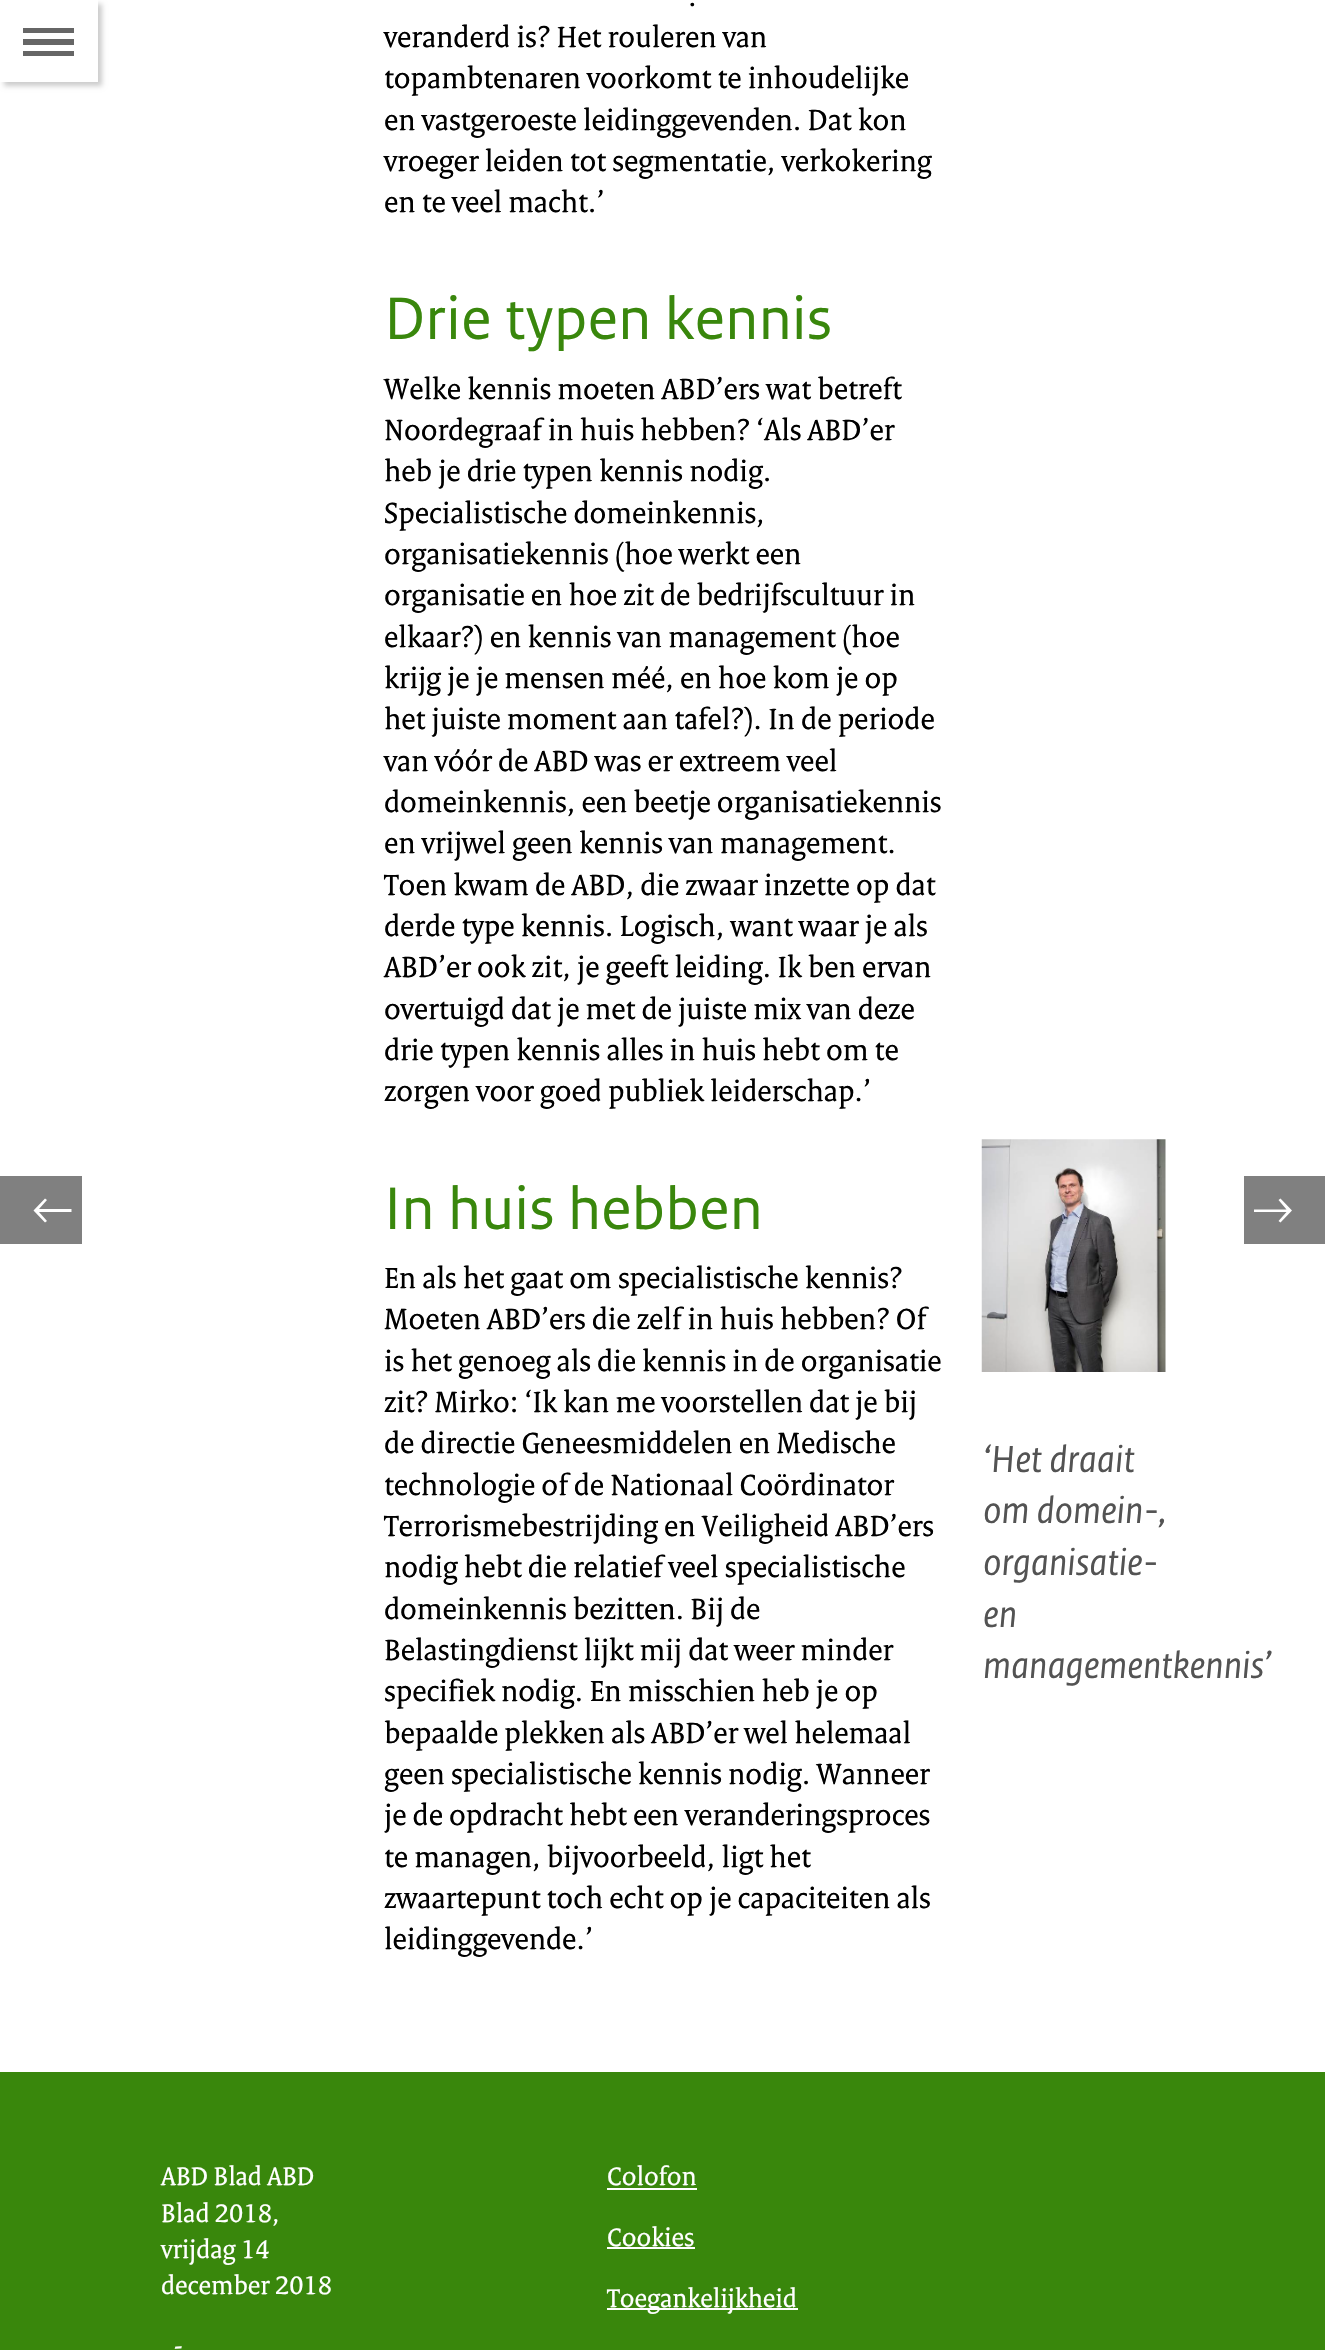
#include "include/core/SkBlurTypes.h"
#include "include/core/SkCanvas.h"
#include "include/core/SkData.h"
#include "include/core/SkFont.h"
#include "include/core/SkFontMgr.h"
#include "include/core/SkImage.h"
#include "include/core/SkMaskFilter.h"
#include "include/core/SkPaint.h"
#include "include/core/SkPathBuilder.h"
#include "include/core/SkTextBlob.h"
#include "include/effects/SkDashPathEffect.h"
#include "include/effects/SkGradientShader.h"
#include "include/utils/SkParsePath.h"

extern sk_sp<SkFontMgr> fontMgr;

void draw(SkCanvas* canvas) {
  SkPaint p;
  p.setAntiAlias(true);
  canvas->clear(SK_ColorWHITE);
  canvas->save();
  canvas->clipPath(SkPathBuilder(SkPathFillType::kEvenOdd).moveTo(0, 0).lineTo(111, 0).lineTo(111, 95).lineTo(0, 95).close().moveTo(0, 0).lineTo(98, 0).lineTo(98, 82).lineTo(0, 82).close().detach(), true);
  p.setColor(SkColorSetARGB(51, 0, 0, 0));
  p.setMaskFilter(SkMaskFilter::MakeBlur(kNormal_SkBlurStyle, 2.5f));
  canvas->drawRect(SkRect::MakeLTRB(4, 4, 102, 86), p);
  p.setMaskFilter(nullptr);
  canvas->restore();
  p.setColor(SkColorSetRGB(102, 102, 102));
  canvas->drawPath(SkPathBuilder().moveTo(23, 28).lineTo(23, 33).lineTo(74, 33).lineTo(74, 28).close().moveTo(23, 39).lineTo(23, 45).lineTo(74, 45).lineTo(74, 39).close().moveTo(23, 51).lineTo(23, 56).lineTo(74, 56).lineTo(74, 51).close().detach(), p);
  canvas->drawImageRect(SkImages::DeferredFromEncodedData(SkData::MakeFromFileName("images/1.png")), SkRect::MakeLTRB(981, 1139, 1166, 1372), SkSamplingOptions());
  p.setColor(SkColorSetRGB(57, 135, 12));
  canvas->drawRect(SkRect::MakeLTRB(0, 2072, 1325, 2350), p);
  p.setColor(SK_ColorWHITE);
  canvas->drawRect(SkRect::MakeLTRB(607, 2188, 697, 2190), p);
  canvas->drawRect(SkRect::MakeLTRB(607, 2247, 695, 2249), p);
  canvas->drawRect(SkRect::MakeLTRB(607, 2308, 798, 2310), p);
  p.setColor(SkColorSetRGB(128, 128, 128));
  canvas->drawRect(SkRect::MakeLTRB(0, 1176, 82, 1244), p);
  p.setColor(SK_ColorWHITE);
  canvas->drawPath(SkPathBuilder().moveTo(45, 1222.5f).lineTo(47, 1221).lineTo(39, 1212).lineTo(71.5f, 1212).lineTo(71.5f, 1209).lineTo(39, 1209).lineTo(47, 1200).lineTo(45, 1198.5f).lineTo(33.5f, 1210.5f).close().detach(), p);
  p.setColor(SkColorSetRGB(128, 128, 128));
  canvas->drawRect(SkRect::MakeLTRB(1244, 1176, 1325, 1244), p);
  p.setColor(SK_ColorWHITE);
  canvas->drawPath(SkPathBuilder().moveTo(1280.5f, 1198.5f).lineTo(1278.5f, 1200).lineTo(1286.5f, 1209.5f).lineTo(1254, 1209.5f).lineTo(1254, 1212).lineTo(1286.5f, 1212).lineTo(1278.5f, 1221).lineTo(1280.5f, 1222.5f).lineTo(1292, 1210.5f).close().detach(), p);
  SkFont font1(fontMgr->matchFamilyStyle("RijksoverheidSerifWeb", SkFontStyle::Normal()), 31.5f);
  font1.setSubpixel(true);
  p.setColor(SK_ColorBLACK);
  canvas->drawString(".", 688, 6, font1, p);
  canvas->drawString("veranderd is? Het rouleren van", 384, 47, font1, p);
  canvas->drawString("topambtenaren voorkomt te inhoudelijke", 384, 88, font1, p);
  canvas->drawString("en vastgeroeste leidinggevenden. Dat kon", 384, 130, font1, p);
  canvas->drawString("vroeger leiden tot segmentatie, verkokering", 384, 171, font1, p);
  canvas->drawString("en te veel macht.’", 384, 212, font1, p);
  SkFont font2(fontMgr->matchFamilyStyle("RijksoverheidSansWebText", SkFontStyle::Normal()), 63);
  font2.setSubpixel(true);
  p.setColor(SkColorSetRGB(57, 135, 12));
  canvas->drawString("Drie typen kennis", 384, 339, font2, p);
  p.setColor(SK_ColorBLACK);
  canvas->drawString("Welke kennis moeten ABD’ers wat betreft", 384, 399, font1, p);
  canvas->drawString("Noordegraaf in huis hebben? ‘Als ABD’er", 384, 440, font1, p);
  canvas->drawString("heb je drie typen kennis nodig.", 384, 481, font1, p);
  canvas->drawString("Specialistische domeinkennis,", 384, 523, font1, p);
  canvas->drawString("organisatiekennis (hoe werkt een", 384, 564, font1, p);
  canvas->drawString("organisatie en hoe zit de bedrijfscultuur in", 384, 605, font1, p);
  canvas->drawString("elkaar?) en kennis van management (hoe", 384, 647, font1, p);
  canvas->drawString("krijg je je mensen méé, en hoe kom je op", 384, 688, font1, p);
  canvas->drawString("het juiste moment aan tafel?). In de periode", 384, 729, font1, p);
  canvas->drawString("van vóór de ABD was er extreem veel", 384, 771, font1, p);
  canvas->drawString("domeinkennis, een beetje organisatiekennis", 384, 812, font1, p);
  canvas->drawString("en vrijwel geen kennis van management.", 384, 853, font1, p);
  canvas->drawString("Toen kwam de ABD, die zwaar inzette op dat", 384, 895, font1, p);
  canvas->drawString("derde type kennis. Logisch, want waar je als", 384, 936, font1, p);
  canvas->drawString("ABD’er ook zit, je geeft leiding. Ik ben ervan", 384, 977, font1, p);
  canvas->drawString("overtuigd dat je met de juiste mix van deze", 384, 1019, font1, p);
  canvas->drawString("drie typen kennis alles in huis hebt om te", 384, 1060, font1, p);
  canvas->drawString("zorgen voor goed publiek leiderschap.’", 384, 1101, font1, p);
  p.setColor(SkColorSetRGB(57, 135, 12));
  canvas->drawString("In huis hebben", 384, 1229, font2, p);
  p.setColor(SK_ColorBLACK);
  canvas->drawString("En als het gaat om specialistische kennis?", 384, 1288, font1, p);
  canvas->drawString("Moeten ABD’ers die zelf in huis hebben? Of", 384, 1329, font1, p);
  canvas->drawString("is het genoeg als die kennis in de organisatie", 384, 1371, font1, p);
  canvas->drawString("zit? Mirko: ‘Ik kan me voorstellen dat je bij", 384, 1412, font1, p);
  canvas->drawString("de directie Geneesmiddelen en Medische", 384, 1453, font1, p);
  canvas->drawString("technologie of de Nationaal Coördinator", 384, 1495, font1, p);
  canvas->drawString("Terrorismebestrijding en Veiligheid ABD’ers", 384, 1536, font1, p);
  canvas->drawString("nodig hebt die relatief veel specialistische", 384, 1577, font1, p);
  canvas->drawString("domeinkennis bezitten. Bij de", 384, 1619, font1, p);
  canvas->drawString("Belastingdienst lijkt mij dat weer minder", 384, 1660, font1, p);
  canvas->drawString("specifiek nodig. En misschien heb je op", 384, 1701, font1, p);
  canvas->drawString("bepaalde plekken als ABD’er wel helemaal", 384, 1743, font1, p);
  canvas->drawString("geen specialistische kennis nodig. Wanneer", 384, 1784, font1, p);
  canvas->drawString("je de opdracht hebt een veranderingsproces", 384, 1825, font1, p);
  canvas->drawString("te managen, bijvoorbeeld, ligt het", 384, 1867, font1, p);
  canvas->drawString("zwaartepunt toch echt op je capaciteiten als", 384, 1908, font1, p);
  canvas->drawString("leidinggevende.’", 384, 1949, font1, p);
  SkFont font3(fontMgr->matchFamilyStyle("RijksoverheidSansWebText", SkFontStyle::Italic()), 39.5f);
  font3.setSubpixel(true);
  p.setColor(SkColorSetRGB(83, 83, 83));
  canvas->drawString("‘Het draait", 983, 1472, font3, p);
  canvas->drawString("om domein-,", 983, 1523, font3, p);
  canvas->drawString("organisatie-", 983, 1575, font3, p);
  canvas->drawString("en", 983, 1627, font3, p);
  canvas->drawString("managementkennis’", 983, 1678, font3, p);
  SkFont font4(fontMgr->matchFamilyStyle("RijksoverheidSerifWeb", SkFontStyle::Normal()), 27.5f);
  font4.setSubpixel(true);
  p.setColor(SK_ColorWHITE);
  canvas->drawString("ABD Blad ABD", 161, 2185, font4, p);
  canvas->drawString("Blad 2018,", 161, 2222, font4, p);
  canvas->drawString("vrijdag 14", 161, 2258, font4, p);
  canvas->drawString("december 2018", 161, 2294, font4, p);
  canvas->drawString("-", 174, 2355, font4, p);
  canvas->drawString("Colofon", 607, 2185, font4, p);
  canvas->drawString("Cookies", 607, 2246, font4, p);
  canvas->drawString("Toegankelijkheid", 607, 2307, font4, p);
}
